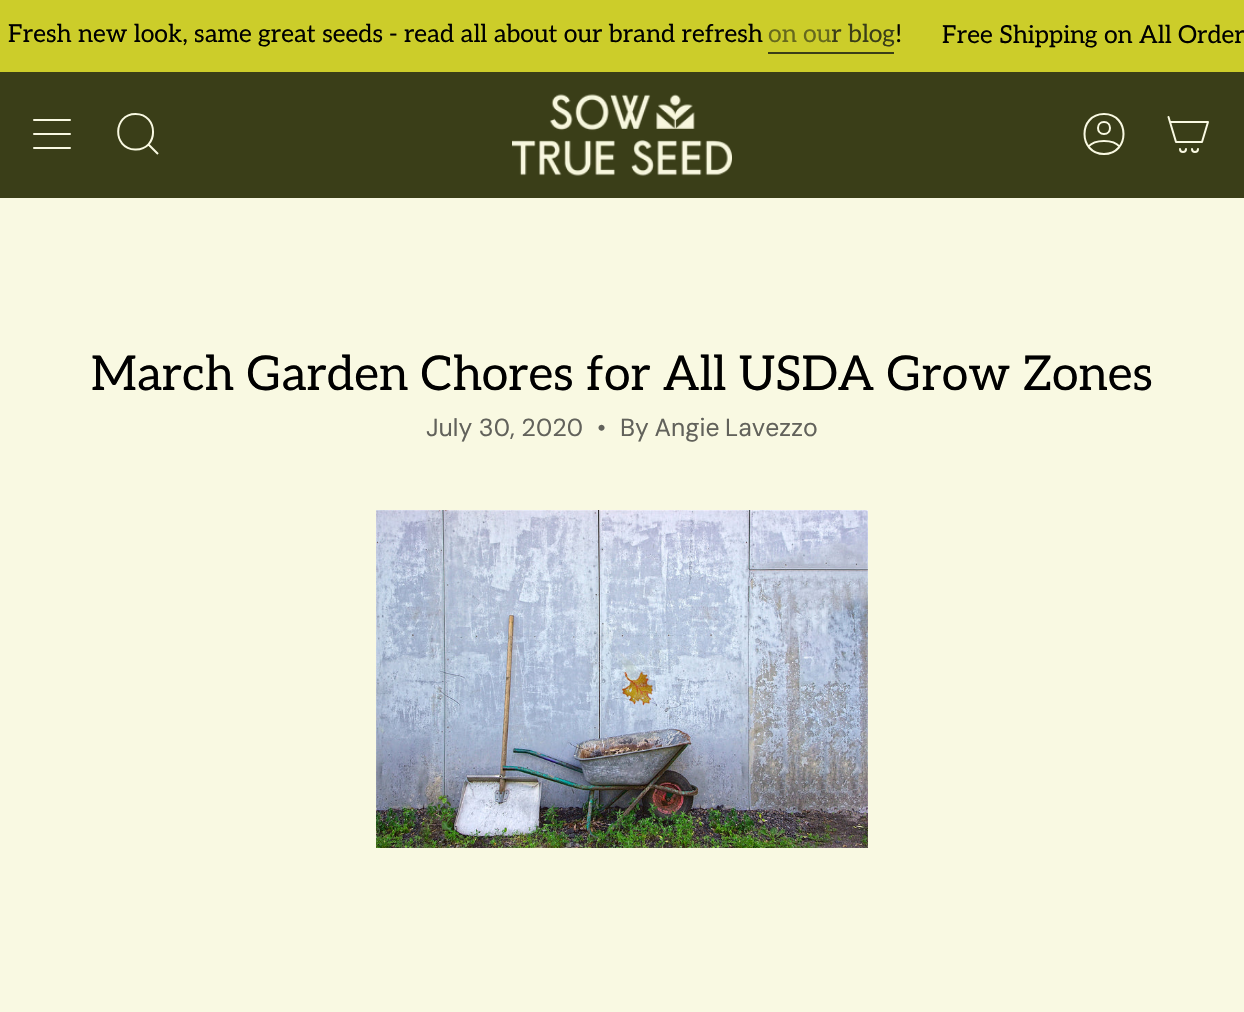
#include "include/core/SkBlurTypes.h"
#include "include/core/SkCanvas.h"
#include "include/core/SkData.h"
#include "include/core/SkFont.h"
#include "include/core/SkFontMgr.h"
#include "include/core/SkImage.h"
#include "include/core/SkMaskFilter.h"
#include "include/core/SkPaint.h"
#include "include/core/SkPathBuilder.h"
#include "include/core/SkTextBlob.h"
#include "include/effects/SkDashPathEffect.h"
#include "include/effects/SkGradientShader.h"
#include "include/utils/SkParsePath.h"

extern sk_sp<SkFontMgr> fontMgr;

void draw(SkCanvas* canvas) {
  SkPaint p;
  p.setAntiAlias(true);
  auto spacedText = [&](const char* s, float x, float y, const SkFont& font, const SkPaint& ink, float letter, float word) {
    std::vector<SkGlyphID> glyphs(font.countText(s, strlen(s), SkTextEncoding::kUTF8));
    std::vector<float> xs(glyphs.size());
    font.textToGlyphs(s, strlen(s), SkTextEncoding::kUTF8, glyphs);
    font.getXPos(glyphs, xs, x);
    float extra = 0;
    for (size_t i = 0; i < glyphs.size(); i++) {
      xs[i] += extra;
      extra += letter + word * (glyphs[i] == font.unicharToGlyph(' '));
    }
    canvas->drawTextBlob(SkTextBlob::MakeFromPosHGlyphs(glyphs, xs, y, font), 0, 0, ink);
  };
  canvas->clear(SkColorSetRGB(249, 249, 226));
  p.setColor(SkColorSetRGB(204, 205, 42));
  canvas->drawRect(SkRect::MakeLTRB(0, 0, 1244, 72), p);
  p.setColor(SkColorSetRGB(58, 62, 24));
  canvas->drawRect(SkRect::MakeLTRB(768, 52, 894, 54), p);
  canvas->drawRect(SkRect::MakeLTRB(0, 72, 1244, 198), p);
  p.setStyle(SkPaint::kStroke_Style);
  p.setStrokeWidth(2);
  p.setStrokeCap(SkPaint::kRound_Cap);
  p.setStrokeJoin(SkPaint::kRound_Join);
  p.setColor(SkColorSetRGB(249, 249, 226));
  canvas->drawPath(SkPathBuilder().moveTo(34, 120).lineTo(70, 120).moveTo(34, 134).lineTo(70, 134).moveTo(34, 148).lineTo(70, 148).detach(), p);
  p.setStrokeCap(SkPaint::kButt_Cap);
  p.setStrokeJoin(SkPaint::kMiter_Join);
  canvas->drawPath(SkPathBuilder().moveTo(135.5f, 114).cubicTo(159, 114, 159, 150.5f, 135, 149.5f).cubicTo(112, 148.5f, 113, 114, 135.5f, 114).close().moveTo(148, 144).lineTo(158, 154).detach(), p);
  canvas->drawImageRect(SkImages::DeferredFromEncodedData(SkData::MakeFromFileName("images/1.png")), SkRect::MakeLTRB(512, 94, 732, 176), SkSamplingOptions());
  p.setStrokeCap(SkPaint::kRound_Cap);
  p.setStrokeJoin(SkPaint::kRound_Join);
  canvas->drawPath(SkPathBuilder().moveTo(1104, 114).cubicTo(1078, 114, 1078, 154, 1104, 154).cubicTo(1130, 154, 1130, 114, 1104, 114).close().moveTo(1088.5f, 146.5f).cubicTo(1094.5f, 139, 1113.5f, 139, 1119.5f, 146.5f).moveTo(1104, 134).cubicTo(1112, 134, 1112, 122, 1104, 122).cubicTo(1096, 122, 1096, 134, 1104, 134).close().detach(), p);
  canvas->drawPath(SkPathBuilder().moveTo(1170, 122).lineTo(1208, 122).lineTo(1202, 142).lineTo(1176, 142).close().moveTo(1170, 122).lineTo(1168.5f, 117).moveTo(1186, 149).cubicTo(1186, 153, 1180, 153, 1180, 149).moveTo(1198, 149).cubicTo(1198, 153, 1192, 153, 1192, 149).detach(), p);
  canvas->drawImageRect(SkImages::DeferredFromEncodedData(SkData::MakeFromFileName("images/2.png")), SkRect::MakeLTRB(376, 510, 868, 848), SkSamplingOptions());
  SkFont font1(fontMgr->matchFamilyStyle("Aleo", SkFontStyle::Normal()), 24.75f);
  font1.setSubpixel(true);
  p.setStyle(SkPaint::kFill_Style);
  p.setColor(SK_ColorBLACK);
  canvas->drawString("Fresh new look, same great seeds - read all about our brand refresh", 8, 42, font1, p);
  {
    const SkColor colors[] = {SkColorSetRGB(102, 105, 29), SkColorSetRGB(102, 105, 29), SkColorSetRGB(58, 62, 24), SkColorSetRGB(58, 62, 24)};
    const float stops[] = {0, 0.5f, 0.5f, 1};
    const SkPoint ends[] = {{768, 37}, {895, 37}};
    p.setShader(SkGradientShader::MakeLinear(ends, colors, stops, 4, SkTileMode::kClamp));
    p.setAlpha(255);
  }
  canvas->drawString("on our blog", 768, 42, font1, p);
  p.setShader(nullptr);
  p.setColor(SK_ColorBLACK);
  canvas->drawString("!", 895, 42, font1, p);
  canvas->drawString("Free Shipping on All Order", 942, 43, font1, p);
  SkFont font2(fontMgr->matchFamilyStyle("Aleo", SkFontStyle::Normal()), 48);
  font2.setSubpixel(true);
  canvas->drawString("March Garden Chores for All USDA Grow Zones", 91, 390, font2, p);
  SkFont font3(fontMgr->matchFamilyStyle("DM Sans", SkFontStyle::Normal()), 24.75f);
  font3.setSubpixel(true);
  p.setColor(SkColorSetRGB(98, 98, 91));
  canvas->drawString("July 30, 2020", 426, 436, font3, p);
  canvas->drawString("•", 597, 436, font3, p);
  spacedText("By Angie Lavezzo", 620, 436, font3, p, 0, -1);
}
